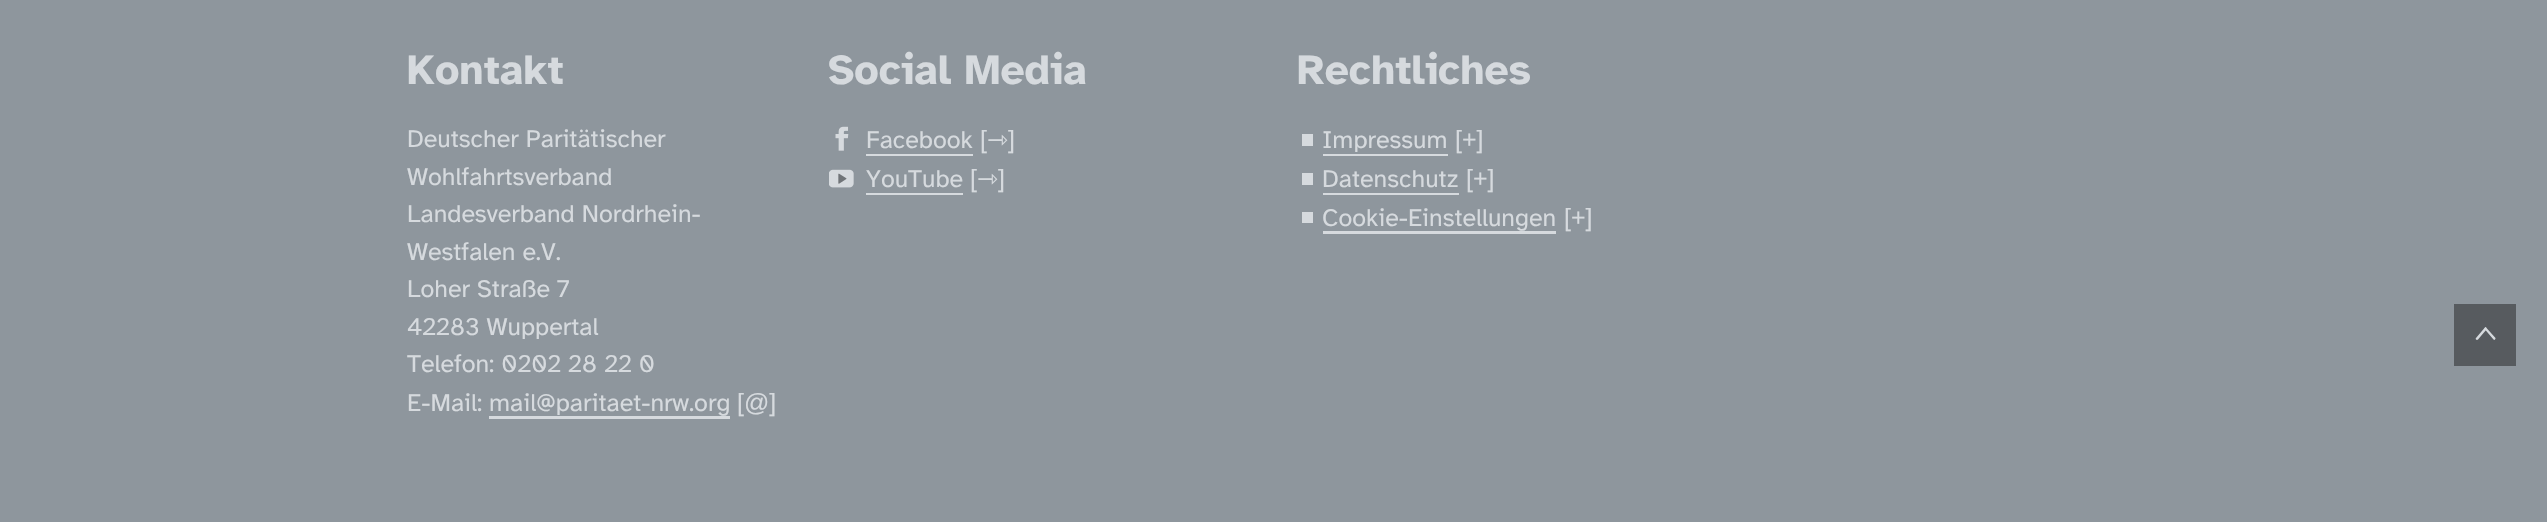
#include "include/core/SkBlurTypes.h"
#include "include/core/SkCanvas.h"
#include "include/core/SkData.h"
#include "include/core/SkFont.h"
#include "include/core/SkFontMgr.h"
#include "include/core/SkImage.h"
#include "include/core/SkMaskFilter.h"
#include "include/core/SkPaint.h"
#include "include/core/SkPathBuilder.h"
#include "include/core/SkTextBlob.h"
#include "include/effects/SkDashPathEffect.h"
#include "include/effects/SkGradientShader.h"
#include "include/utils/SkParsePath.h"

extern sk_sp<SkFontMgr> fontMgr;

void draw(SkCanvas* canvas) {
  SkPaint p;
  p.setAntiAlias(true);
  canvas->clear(SkColorSetRGB(142, 150, 157));
  p.setColor(SkColorSetRGB(214, 218, 222));
  canvas->drawRect(SkRect::MakeLTRB(489, 416, 730, 419), p);
  canvas->drawImageRect(SkImages::DeferredFromEncodedData(SkData::MakeFromFileName("images/1.png")), SkRect::MakeLTRB(835, 126, 849, 151), SkSamplingOptions());
  canvas->drawRect(SkRect::MakeLTRB(866, 154, 973, 156), p);
  canvas->drawImageRect(SkImages::DeferredFromEncodedData(SkData::MakeFromFileName("images/2.png")), SkRect::MakeLTRB(829, 169, 854, 188), SkSamplingOptions());
  canvas->drawRect(SkRect::MakeLTRB(866, 193, 963, 195), p);
  canvas->drawRect(SkRect::MakeLTRB(1302, 134, 1313, 146), p);
  canvas->drawRect(SkRect::MakeLTRB(1323, 154, 1448, 156), p);
  canvas->drawRect(SkRect::MakeLTRB(1302, 173, 1313, 185), p);
  canvas->drawRect(SkRect::MakeLTRB(1323, 193, 1459, 195), p);
  canvas->drawRect(SkRect::MakeLTRB(1302, 212, 1313, 223), p);
  canvas->drawRect(SkRect::MakeLTRB(1323, 231, 1556, 234), p);
  p.setColor(SkColorSetRGB(87, 91, 95));
  canvas->drawRect(SkRect::MakeLTRB(2454, 304, 2516, 366), p);
  p.setColor(SkColorSetRGB(214, 218, 222));
  canvas->drawPath(SkPathBuilder().moveTo(2485, 327.5f).cubicTo(2485.5f, 327, 2486.5f, 327.5f, 2486.5f, 328).lineTo(2495.5f, 338).cubicTo(2495.5f, 338.5f, 2495.5f, 339, 2495, 339.5f).cubicTo(2494.5f, 340, 2494, 340, 2493.5f, 339.5f).lineTo(2485, 329.5f).cubicTo(2484.5f, 329, 2484.5f, 328, 2485, 327.5f).close().detach(), p);
  canvas->drawPath(SkPathBuilder().moveTo(2486, 327.5f).cubicTo(2486.5f, 328, 2486.5f, 329, 2486.5f, 329.5f).lineTo(2478, 339.5f).cubicTo(2477.5f, 340, 2476.5f, 340, 2476, 339.5f).cubicTo(2475.5f, 339, 2475.5f, 338.5f, 2476, 338).lineTo(2484.5f, 328).cubicTo(2485, 327.5f, 2485.5f, 327, 2486, 327.5f).close().detach(), p);
  SkFont font1(fontMgr->matchFamilyStyle("Atkinson Hyperlegible", SkFontStyle::Bold()), 42.5f);
  font1.setSubpixel(true);
  canvas->drawString("Kontakt", 407, 84, font1, p);
  SkFont font2(fontMgr->matchFamilyStyle("Atkinson Hyperlegible", SkFontStyle::Normal()), 25);
  font2.setSubpixel(true);
  canvas->drawString("Deutscher Paritätischer", 407, 147, font2, p);
  canvas->drawString("Wohlfahrtsverband", 407, 185, font2, p);
  canvas->drawString("Landesverband Nordrhein-", 407, 222, font2, p);
  canvas->drawString("Westfalen e.V.", 407, 260, font2, p);
  canvas->drawString("Loher Straße 7", 407, 297, font2, p);
  canvas->drawString("42283 Wuppertal", 407, 335, font2, p);
  canvas->drawString("Telefon: 0202 28 22 0", 407, 372, font2, p);
  canvas->drawString("E-Mail: mail@paritaet-nrw.org", 407, 411, font2, p);
  SkFont font3(fontMgr->matchFamilyStyle("Liberation Sans", SkFontStyle::Normal()), 25);
  font3.setSubpixel(true);
  canvas->drawString("[@]", 737, 411, font3, p);
  canvas->drawString("Social Media", 828, 84, font1, p);
  canvas->drawString("Facebook", 866, 148, font2, p);
  canvas->drawString("[", 980, 148, font3, p);
  SkFont font4(fontMgr->matchFamilyStyle("DejaVu Sans", SkFontStyle::Normal()), 25);
  font4.setSubpixel(true);
  canvas->drawString("⇾", 987, 148, font4, p);
  canvas->drawString("]", 1008, 148, font3, p);
  canvas->drawString("YouTube", 866, 187, font2, p);
  canvas->drawString("[", 970, 187, font3, p);
  canvas->drawString("⇾", 977, 187, font4, p);
  canvas->drawString("]", 998, 187, font3, p);
  canvas->drawString("Rechtliches", 1297, 84, font1, p);
  canvas->drawString("Impressum", 1322, 148, font2, p);
  canvas->drawString("[+]", 1455, 148, font3, p);
  canvas->drawString("Datenschutz", 1322, 187, font2, p);
  canvas->drawString("[+]", 1466, 187, font3, p);
  canvas->drawString("Cookie-Einstellungen", 1322, 226, font2, p);
  canvas->drawString("[+]", 1564, 226, font3, p);
}
